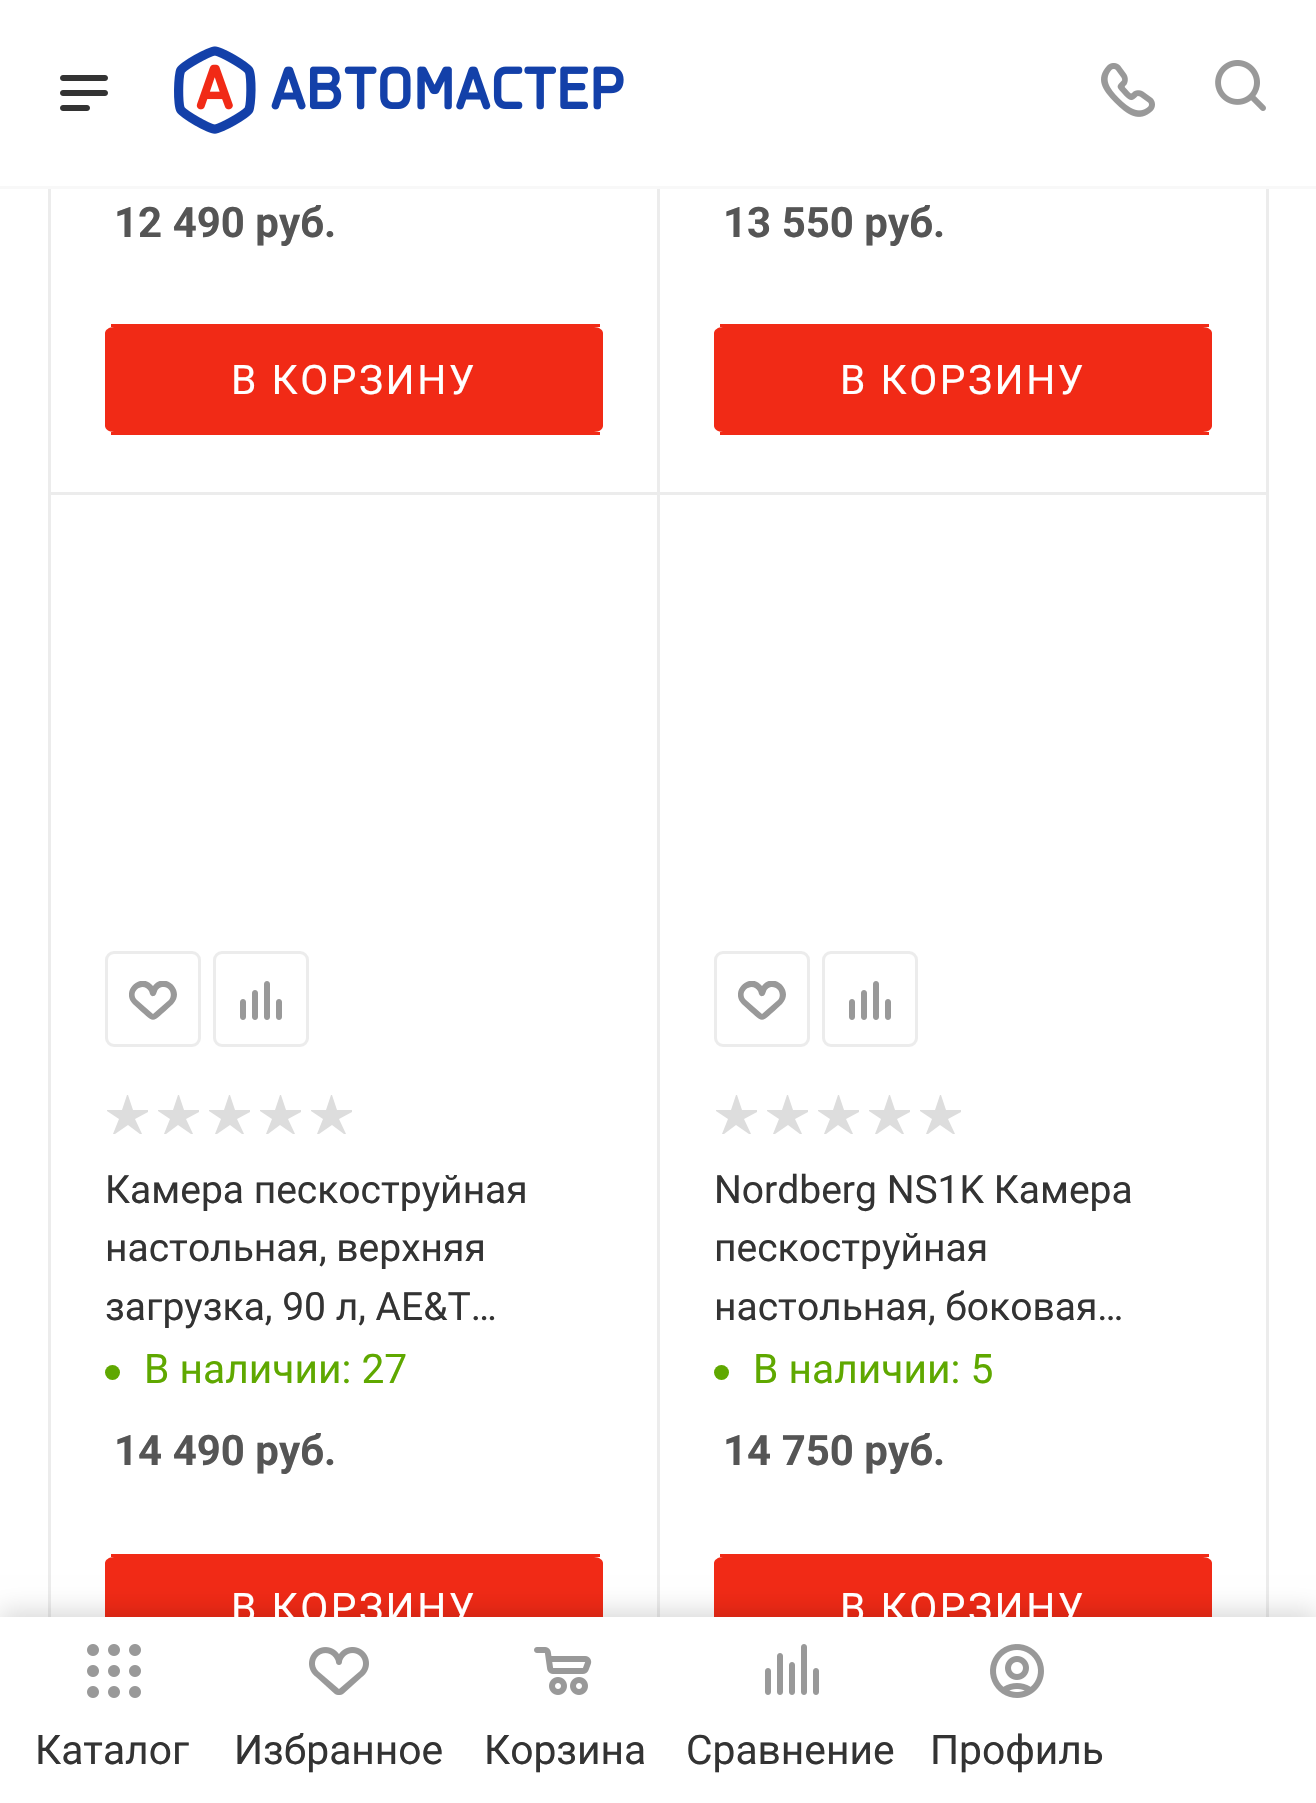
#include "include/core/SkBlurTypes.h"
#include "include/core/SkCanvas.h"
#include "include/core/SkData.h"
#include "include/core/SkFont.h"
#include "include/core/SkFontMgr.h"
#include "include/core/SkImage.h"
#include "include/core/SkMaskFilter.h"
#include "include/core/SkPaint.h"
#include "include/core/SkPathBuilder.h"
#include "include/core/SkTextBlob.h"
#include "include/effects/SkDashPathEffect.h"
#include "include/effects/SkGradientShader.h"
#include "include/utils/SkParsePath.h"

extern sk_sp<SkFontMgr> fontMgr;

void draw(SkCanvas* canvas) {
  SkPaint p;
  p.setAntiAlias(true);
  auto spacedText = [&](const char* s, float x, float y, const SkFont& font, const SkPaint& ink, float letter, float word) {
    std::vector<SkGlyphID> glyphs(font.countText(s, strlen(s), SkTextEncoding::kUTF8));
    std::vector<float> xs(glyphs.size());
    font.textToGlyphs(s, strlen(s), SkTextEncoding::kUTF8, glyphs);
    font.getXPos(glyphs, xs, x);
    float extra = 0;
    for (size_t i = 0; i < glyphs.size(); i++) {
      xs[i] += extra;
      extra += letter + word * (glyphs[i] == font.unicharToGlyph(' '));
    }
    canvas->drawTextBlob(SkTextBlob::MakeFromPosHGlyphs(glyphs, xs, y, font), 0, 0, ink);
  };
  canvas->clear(SK_ColorWHITE);
  p.setStyle(SkPaint::kStroke_Style);
  p.setStrokeWidth(3);
  p.setColor(SkColorSetRGB(236, 236, 236));
  canvas->drawRect(SkRect::MakeLTRB(49.5f, -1.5f, 658.5f, 493.5f), p);
  canvas->drawRect(SkRect::MakeLTRB(658.5f, -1.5f, 1267.5f, 493.5f), p);
  p.setStyle(SkPaint::kFill_Style);
  p.setColor(SK_ColorWHITE);
  canvas->drawRect(SkRect::MakeLTRB(48, 0, 1269, 186), p);
  p.setColor(SkColorSetRGB(248, 248, 248));
  canvas->drawRect(SkRect::MakeLTRB(0, 186, 1316, 189), p);
  canvas->drawImageRect(SkImages::DeferredFromEncodedData(SkData::MakeFromFileName("images/1.png")), SkRect::MakeLTRB(60, 75, 108, 111), SkSamplingOptions());
  canvas->drawImageRect(SkImages::DeferredFromEncodedData(SkData::MakeFromFileName("images/2.png")), SkRect::MakeLTRB(174, 46, 624, 134), SkSamplingOptions());
  canvas->drawImageRect(SkImages::DeferredFromEncodedData(SkData::MakeFromFileName("images/3.png")), SkRect::MakeLTRB(1101, 63, 1155, 117), SkSamplingOptions());
  canvas->drawImageRect(SkImages::DeferredFromEncodedData(SkData::MakeFromFileName("images/4.png")), SkRect::MakeLTRB(1215, 60, 1266, 111), SkSamplingOptions());
  p.setColor(SkColorSetRGB(241, 42, 22));
  canvas->drawPath(SkPathBuilder().moveTo(114, 327).lineTo(594, 327).cubicTo(599, 327, 603, 330, 603, 333).lineTo(603, 426).cubicTo(603, 429, 599, 432, 594, 432).lineTo(114, 432).cubicTo(109, 432, 105, 429, 105, 426).lineTo(105, 333).cubicTo(105, 330, 109, 327, 114, 327).close().detach(), p);
  canvas->drawRect(SkRect::MakeLTRB(111, 324, 600, 327), p);
  canvas->drawRect(SkRect::MakeLTRB(111, 432, 600, 435), p);
  canvas->drawPath(SkPathBuilder().moveTo(723, 327).lineTo(1203, 327).cubicTo(1208, 327, 1212, 330, 1212, 333).lineTo(1212, 426).cubicTo(1212, 429, 1208, 432, 1203, 432).lineTo(723, 432).cubicTo(718, 432, 714, 429, 714, 426).lineTo(714, 333).cubicTo(714, 330, 718, 327, 723, 327).close().detach(), p);
  canvas->drawRect(SkRect::MakeLTRB(720, 324, 1209, 327), p);
  canvas->drawRect(SkRect::MakeLTRB(720, 432, 1209, 435), p);
  p.setStyle(SkPaint::kStroke_Style);
  p.setColor(SkColorSetRGB(236, 236, 236));
  canvas->drawRect(SkRect::MakeLTRB(49.5f, 493.5f, 658.5f, 1720.5f), p);
  canvas->drawRoundRect(SkRect::MakeLTRB(106.5f, 952.5f, 199.5f, 1045.5f), 7.5f, 7.5f, p);
  canvas->save();
  canvas->clipRect(SkRect::MakeLTRB(129, 981, 177, 1020));
  p.setStyle(SkPaint::kFill_Style);
  p.setColor(SkColorSetRGB(153, 153, 153));
  canvas->drawPath(SkPathBuilder(SkPathFillType::kEvenOdd).moveTo(173, 1004).cubicTo(149, 1025, 157, 1025, 133, 1004).cubicTo(120, 991, 141, 971, 153, 986).cubicTo(164, 971, 186, 990, 173, 1004).close().moveTo(164, 987).cubicTo(155, 987, 158, 995, 154, 996).cubicTo(150, 997, 150, 993, 149, 991).cubicTo(143, 981, 129, 992, 137, 1000).lineTo(153, 1014).lineTo(169, 1000).cubicTo(173, 995, 170, 987, 164, 987).close().detach(), p);
  canvas->restore();
  p.setStyle(SkPaint::kStroke_Style);
  p.setColor(SkColorSetRGB(236, 236, 236));
  canvas->drawRoundRect(SkRect::MakeLTRB(214.5f, 952.5f, 307.5f, 1045.5f), 7.5f, 7.5f, p);
  canvas->drawImageRect(SkImages::DeferredFromEncodedData(SkData::MakeFromFileName("images/5.png")), SkRect::MakeLTRB(240, 981, 282, 1020), SkSamplingOptions());
  p.setStyle(SkPaint::kFill_Style);
  p.setColor(SkColorSetRGB(221, 221, 221));
  canvas->drawPath(SkPathBuilder(SkPathFillType::kEvenOdd).moveTo(148, 1112).lineTo(135, 1119).lineTo(142, 1134).lineTo(140, 1134).lineTo(128, 1125).lineTo(115, 1134).lineTo(113, 1134).lineTo(119, 1119).lineTo(107, 1111).lineTo(107, 1110).lineTo(122, 1110).lineTo(127, 1095).lineTo(128, 1095).lineTo(133, 1110).lineTo(148, 1110).close().detach(), p);
  canvas->drawPath(SkPathBuilder(SkPathFillType::kEvenOdd).moveTo(199, 1112).lineTo(186, 1119).lineTo(193, 1134).lineTo(191, 1134).lineTo(178, 1125).lineTo(166, 1134).lineTo(164, 1134).lineTo(170, 1119).lineTo(158, 1111).lineTo(158, 1110).lineTo(173, 1110).lineTo(178, 1095).lineTo(179, 1095).lineTo(184, 1110).lineTo(199, 1110).close().detach(), p);
  canvas->drawPath(SkPathBuilder(SkPathFillType::kEvenOdd).moveTo(250, 1112).lineTo(237, 1119).lineTo(244, 1134).lineTo(242, 1134).lineTo(230, 1125).lineTo(217, 1134).lineTo(215, 1134).lineTo(221, 1119).lineTo(209, 1111).lineTo(209, 1110).lineTo(224, 1110).lineTo(229, 1095).lineTo(230, 1095).lineTo(235, 1110).lineTo(250, 1110).close().detach(), p);
  canvas->drawPath(SkPathBuilder(SkPathFillType::kEvenOdd).moveTo(301, 1112).lineTo(288, 1119).lineTo(295, 1134).lineTo(293, 1134).lineTo(280, 1125).lineTo(268, 1134).lineTo(266, 1134).lineTo(272, 1119).lineTo(260, 1111).lineTo(260, 1110).lineTo(275, 1110).lineTo(280, 1095).lineTo(281, 1095).lineTo(286, 1110).lineTo(301, 1110).close().detach(), p);
  canvas->drawPath(SkPathBuilder(SkPathFillType::kEvenOdd).moveTo(352, 1112).lineTo(339, 1119).lineTo(346, 1134).lineTo(344, 1134).lineTo(332, 1125).lineTo(319, 1134).lineTo(317, 1134).lineTo(323, 1119).lineTo(311, 1111).lineTo(311, 1110).lineTo(326, 1110).lineTo(331, 1095).lineTo(332, 1095).lineTo(337, 1110).lineTo(352, 1110).close().detach(), p);
  p.setColor(SkColorSetRGB(95, 168, 0));
  canvas->drawCircle(112.5f, 1372.5f, 7.5f, p);
  p.setColor(SkColorSetRGB(241, 42, 22));
  canvas->drawPath(SkPathBuilder().moveTo(114, 1557).lineTo(594, 1557).cubicTo(599, 1557, 603, 1560, 603, 1563).lineTo(603, 1653).cubicTo(603, 1656, 599, 1659, 594, 1659).lineTo(114, 1659).cubicTo(109, 1659, 105, 1656, 105, 1653).lineTo(105, 1563).cubicTo(105, 1560, 109, 1557, 114, 1557).close().detach(), p);
  canvas->drawRect(SkRect::MakeLTRB(111, 1554, 600, 1557), p);
  p.setStyle(SkPaint::kStroke_Style);
  p.setColor(SkColorSetRGB(236, 236, 236));
  canvas->drawRect(SkRect::MakeLTRB(658.5f, 493.5f, 1267.5f, 1720.5f), p);
  canvas->drawRoundRect(SkRect::MakeLTRB(715.5f, 952.5f, 808.5f, 1045.5f), 7.5f, 7.5f, p);
  canvas->save();
  canvas->clipRect(SkRect::MakeLTRB(738, 981, 786, 1020));
  p.setStyle(SkPaint::kFill_Style);
  p.setColor(SkColorSetRGB(153, 153, 153));
  canvas->drawPath(SkPathBuilder(SkPathFillType::kEvenOdd).moveTo(782, 1004).cubicTo(758, 1025, 766, 1025, 742, 1004).cubicTo(729, 991, 750, 971, 762, 986).cubicTo(773, 971, 795, 990, 782, 1004).close().moveTo(773, 987).cubicTo(764, 987, 767, 995, 763, 996).cubicTo(759, 997, 759, 993, 758, 991).cubicTo(752, 981, 738, 992, 746, 1000).lineTo(762, 1014).lineTo(778, 1000).cubicTo(782, 995, 779, 987, 772, 987).close().detach(), p);
  canvas->restore();
  p.setStyle(SkPaint::kStroke_Style);
  p.setColor(SkColorSetRGB(236, 236, 236));
  canvas->drawRoundRect(SkRect::MakeLTRB(823.5f, 952.5f, 916.5f, 1045.5f), 7.5f, 7.5f, p);
  canvas->drawImageRect(SkImages::DeferredFromEncodedData(SkData::MakeFromFileName("images/5.png")), SkRect::MakeLTRB(849, 981, 891, 1020), SkSamplingOptions());
  p.setStyle(SkPaint::kFill_Style);
  p.setColor(SkColorSetRGB(221, 221, 221));
  canvas->drawPath(SkPathBuilder(SkPathFillType::kEvenOdd).moveTo(757, 1112).lineTo(744, 1119).lineTo(751, 1134).lineTo(749, 1134).lineTo(736, 1125).lineTo(724, 1134).lineTo(722, 1134).lineTo(728, 1119).lineTo(716, 1111).lineTo(716, 1110).lineTo(731, 1110).lineTo(736, 1095).lineTo(737, 1095).lineTo(742, 1110).lineTo(757, 1110).close().detach(), p);
  canvas->drawPath(SkPathBuilder(SkPathFillType::kEvenOdd).moveTo(808, 1112).lineTo(795, 1119).lineTo(802, 1134).lineTo(800, 1134).lineTo(788, 1125).lineTo(775, 1134).lineTo(773, 1134).lineTo(779, 1119).lineTo(767, 1111).lineTo(767, 1110).lineTo(782, 1110).lineTo(787, 1095).lineTo(788, 1095).lineTo(793, 1110).lineTo(808, 1110).close().detach(), p);
  canvas->drawPath(SkPathBuilder(SkPathFillType::kEvenOdd).moveTo(859, 1112).lineTo(846, 1119).lineTo(853, 1134).lineTo(851, 1134).lineTo(838, 1125).lineTo(826, 1134).lineTo(824, 1134).lineTo(830, 1119).lineTo(818, 1111).lineTo(818, 1110).lineTo(833, 1110).lineTo(838, 1095).lineTo(839, 1095).lineTo(844, 1110).lineTo(859, 1110).close().detach(), p);
  canvas->drawPath(SkPathBuilder(SkPathFillType::kEvenOdd).moveTo(910, 1112).lineTo(897, 1119).lineTo(904, 1134).lineTo(902, 1134).lineTo(890, 1125).lineTo(877, 1134).lineTo(875, 1134).lineTo(881, 1119).lineTo(869, 1111).lineTo(869, 1110).lineTo(884, 1110).lineTo(889, 1095).lineTo(890, 1095).lineTo(895, 1110).lineTo(910, 1110).close().detach(), p);
  canvas->drawPath(SkPathBuilder(SkPathFillType::kEvenOdd).moveTo(961, 1112).lineTo(948, 1119).lineTo(955, 1134).lineTo(953, 1134).lineTo(940, 1125).lineTo(928, 1134).lineTo(926, 1134).lineTo(932, 1119).lineTo(920, 1111).lineTo(920, 1110).lineTo(935, 1110).lineTo(940, 1095).lineTo(941, 1095).lineTo(946, 1110).lineTo(961, 1110).close().detach(), p);
  p.setColor(SkColorSetRGB(95, 168, 0));
  canvas->drawCircle(721.5f, 1372.5f, 7.5f, p);
  p.setColor(SkColorSetRGB(241, 42, 22));
  canvas->drawPath(SkPathBuilder().moveTo(723, 1557).lineTo(1203, 1557).cubicTo(1208, 1557, 1212, 1560, 1212, 1563).lineTo(1212, 1653).cubicTo(1212, 1656, 1208, 1659, 1203, 1659).lineTo(723, 1659).cubicTo(718, 1659, 714, 1656, 714, 1653).lineTo(714, 1563).cubicTo(714, 1560, 718, 1557, 723, 1557).close().detach(), p);
  canvas->drawRect(SkRect::MakeLTRB(720, 1554, 1209, 1557), p);
  p.setColor(SkColorSetARGB(38, 0, 0, 0));
  p.setMaskFilter(SkMaskFilter::MakeBlur(kNormal_SkBlurStyle, 12));
  canvas->drawRect(SkRect::MakeLTRB(0, 1611, 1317, 1797), p);
  p.setMaskFilter(nullptr);
  p.setColor(SK_ColorWHITE);
  canvas->drawRect(SkRect::MakeLTRB(0, 1617, 1316, 1803), p);
  canvas->drawImageRect(SkImages::DeferredFromEncodedData(SkData::MakeFromFileName("images/6.png")), SkRect::MakeLTRB(87, 1644, 141, 1698), SkSamplingOptions());
  canvas->drawImageRect(SkImages::DeferredFromEncodedData(SkData::MakeFromFileName("images/7.png")), SkRect::MakeLTRB(309, 1647, 369, 1695), SkSamplingOptions());
  canvas->drawImageRect(SkImages::DeferredFromEncodedData(SkData::MakeFromFileName("images/8.png")), SkRect::MakeLTRB(534, 1647, 592, 1695), SkSamplingOptions());
  canvas->drawImageRect(SkImages::DeferredFromEncodedData(SkData::MakeFromFileName("images/9.png")), SkRect::MakeLTRB(765, 1644, 819, 1695), SkSamplingOptions());
  canvas->drawImageRect(SkImages::DeferredFromEncodedData(SkData::MakeFromFileName("images/10.png")), SkRect::MakeLTRB(990, 1644, 1044, 1698), SkSamplingOptions());
  SkFont font1(fontMgr->matchFamilyStyle("Roboto", SkFontStyle::Bold()), 42);
  font1.setSubpixel(true);
  p.setColor(SkColorSetRGB(85, 85, 85));
  canvas->drawString("12 490 руб.", 114, 237, font1, p);
  SkFont font2(fontMgr->matchFamilyStyle("Roboto", SkFontStyle::Normal()), 40.75f);
  font2.setSubpixel(true);
  p.setColor(SK_ColorWHITE);
  spacedText("В КОРЗИНУ", 231, 394, font2, p, 2.5f, 0);
  p.setColor(SkColorSetRGB(85, 85, 85));
  canvas->drawString("13 550 руб.", 723, 237, font1, p);
  p.setColor(SK_ColorWHITE);
  spacedText("В КОРЗИНУ", 840, 394, font2, p, 2.5f, 0);
  SkFont font3(fontMgr->matchFamilyStyle("Roboto", SkFontStyle::Normal()), 39);
  font3.setSubpixel(true);
  p.setColor(SkColorSetRGB(51, 51, 51));
  canvas->drawString("Камера пескоструйная", 105, 1203, font3, p);
  canvas->drawString("настольная, верхняя", 105, 1261, font3, p);
  canvas->drawString("загрузка, 90 л, AE&T…", 105, 1320, font3, p);
  p.setColor(SkColorSetRGB(95, 168, 0));
  canvas->drawString("В наличии: 27", 144, 1383, font2, p);
  p.setColor(SkColorSetRGB(85, 85, 85));
  canvas->drawString("14 490 руб.", 114, 1465, font1, p);
  p.setColor(SK_ColorWHITE);
  spacedText("В КОРЗИНУ", 231, 1622, font2, p, 2.5f, 0);
  p.setColor(SkColorSetRGB(51, 51, 51));
  canvas->drawString("Nordberg NS1K Камера", 714, 1203, font3, p);
  canvas->drawString("пескоструйная", 714, 1261, font3, p);
  canvas->drawString("настольная, боковая…", 714, 1320, font3, p);
  p.setColor(SkColorSetRGB(95, 168, 0));
  canvas->drawString("В наличии: 5", 753, 1383, font2, p);
  p.setColor(SkColorSetRGB(85, 85, 85));
  canvas->drawString("14 750 руб.", 723, 1465, font1, p);
  p.setColor(SK_ColorWHITE);
  spacedText("В КОРЗИНУ", 840, 1622, font2, p, 2.5f, 0);
  p.setColor(SkColorSetRGB(51, 51, 51));
  canvas->drawString("Каталог", 35, 1764, font2, p);
  canvas->drawString("Избранное", 234, 1764, font2, p);
  canvas->drawString("Корзина", 484, 1764, font2, p);
  canvas->drawString("Сравнение", 686, 1764, font2, p);
  canvas->drawString("Профиль", 930, 1764, font2, p);
}
